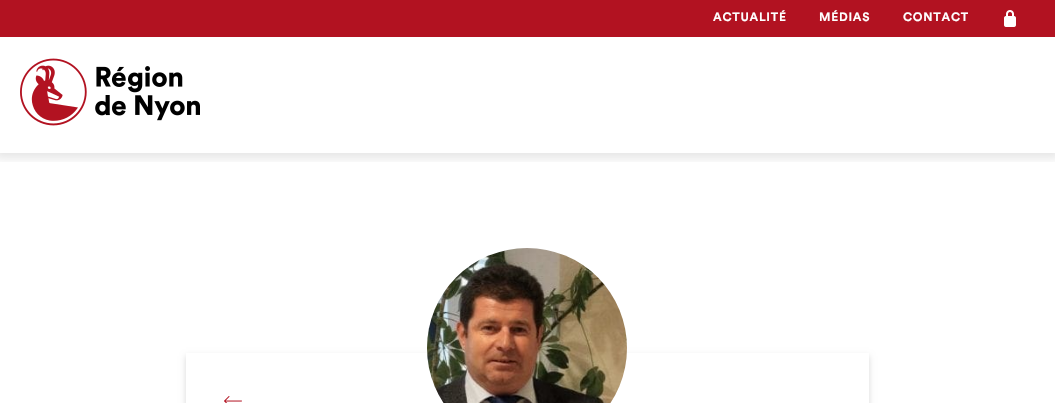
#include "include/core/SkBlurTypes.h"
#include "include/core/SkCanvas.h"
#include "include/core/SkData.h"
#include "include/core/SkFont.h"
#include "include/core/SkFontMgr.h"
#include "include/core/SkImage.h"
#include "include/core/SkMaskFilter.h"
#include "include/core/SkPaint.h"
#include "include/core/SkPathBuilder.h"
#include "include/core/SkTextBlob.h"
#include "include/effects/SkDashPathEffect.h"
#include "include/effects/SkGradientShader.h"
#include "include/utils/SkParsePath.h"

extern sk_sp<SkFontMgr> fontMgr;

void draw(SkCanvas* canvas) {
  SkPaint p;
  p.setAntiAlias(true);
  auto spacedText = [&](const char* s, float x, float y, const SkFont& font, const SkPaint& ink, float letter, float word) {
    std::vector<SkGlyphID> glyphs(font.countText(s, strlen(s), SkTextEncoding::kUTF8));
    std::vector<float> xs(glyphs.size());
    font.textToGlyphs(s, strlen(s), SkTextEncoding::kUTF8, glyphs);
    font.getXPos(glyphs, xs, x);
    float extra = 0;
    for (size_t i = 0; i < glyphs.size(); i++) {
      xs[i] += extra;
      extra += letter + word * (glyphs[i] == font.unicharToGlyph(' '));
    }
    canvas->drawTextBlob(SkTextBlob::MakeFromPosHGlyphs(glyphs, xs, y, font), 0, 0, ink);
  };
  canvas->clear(SK_ColorWHITE);
  canvas->save();
  canvas->clipRect(SkRect::MakeLTRB(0, 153, 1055, 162));
  p.setColor(SkColorSetARGB(26, 0, 0, 0));
  p.setMaskFilter(SkMaskFilter::MakeBlur(kNormal_SkBlurStyle, 5));
  canvas->drawRect(SkRect::MakeLTRB(-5, 32, 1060, 158), p);
  p.setMaskFilter(nullptr);
  canvas->restore();
  p.setColor(SkColorSetRGB(178, 18, 33));
  canvas->drawRect(SkRect::MakeLTRB(0, 0, 1055, 37), p);
  canvas->drawImageRect(SkImages::DeferredFromEncodedData(SkData::MakeFromFileName("images/1.png")), SkRect::MakeLTRB(1004, 10, 1016, 27), SkSamplingOptions());
  canvas->drawImageRect(SkImages::DeferredFromEncodedData(SkData::MakeFromFileName("images/2.png")), SkRect::MakeLTRB(20, 58, 200, 126), SkSamplingOptions());
  canvas->save();
  canvas->clipPath(SkPathBuilder(SkPathFillType::kEvenOdd).moveTo(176, 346).lineTo(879, 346).lineTo(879, 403).lineTo(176, 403).close().moveTo(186, 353).lineTo(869, 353).lineTo(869, 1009).lineTo(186, 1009).close().detach(), true);
  p.setColor(SkColorSetARGB(38, 0, 0, 0));
  p.setMaskFilter(SkMaskFilter::MakeBlur(kNormal_SkBlurStyle, 3));
  canvas->drawRect(SkRect::MakeLTRB(186, 356, 869, 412), p);
  p.setMaskFilter(nullptr);
  canvas->restore();
  canvas->drawImageRect(SkImages::DeferredFromEncodedData(SkData::MakeFromFileName("images/3.png")), SkRect::MakeLTRB(224, 396, 242, 403), SkSamplingOptions());
  canvas->drawImageRect(SkImages::DeferredFromEncodedData(SkData::MakeFromFileName("images/4.png")), SkRect::MakeLTRB(427, 248, 627, 403), SkSamplingOptions());
  SkFont font1(fontMgr->matchFamilyStyle("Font", SkFontStyle::Bold()), 12);
  font1.setSubpixel(true);
  p.setColor(SK_ColorWHITE);
  spacedText("ACTUALITÉ", 713, 21, font1, p, 0.75f, 0);
  spacedText("MÉDIAS", 819, 21, font1, p, 0.75f, 0);
  spacedText("CONTACT", 903, 21, font1, p, 0.75f, 0);
}
